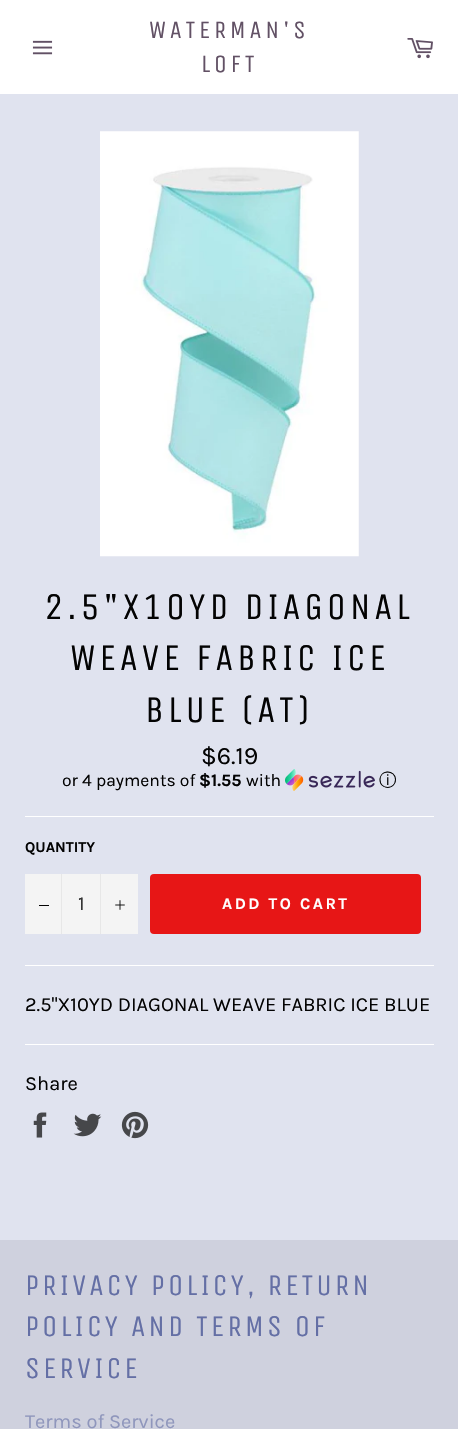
#include "include/core/SkBlurTypes.h"
#include "include/core/SkCanvas.h"
#include "include/core/SkData.h"
#include "include/core/SkFont.h"
#include "include/core/SkFontMgr.h"
#include "include/core/SkImage.h"
#include "include/core/SkMaskFilter.h"
#include "include/core/SkPaint.h"
#include "include/core/SkPathBuilder.h"
#include "include/core/SkTextBlob.h"
#include "include/effects/SkDashPathEffect.h"
#include "include/effects/SkGradientShader.h"
#include "include/utils/SkParsePath.h"

extern sk_sp<SkFontMgr> fontMgr;

void draw(SkCanvas* canvas) {
  SkPaint p;
  p.setAntiAlias(true);
  auto spacedText = [&](const char* s, float x, float y, const SkFont& font, const SkPaint& ink, float letter, float word) {
    std::vector<SkGlyphID> glyphs(font.countText(s, strlen(s), SkTextEncoding::kUTF8));
    std::vector<float> xs(glyphs.size());
    font.textToGlyphs(s, strlen(s), SkTextEncoding::kUTF8, glyphs);
    font.getXPos(glyphs, xs, x);
    float extra = 0;
    for (size_t i = 0; i < glyphs.size(); i++) {
      xs[i] += extra;
      extra += letter + word * (glyphs[i] == font.unicharToGlyph(' '));
    }
    canvas->drawTextBlob(SkTextBlob::MakeFromPosHGlyphs(glyphs, xs, y, font), 0, 0, ink);
  };
  canvas->clear(SK_ColorWHITE);
  canvas->drawImageRect(SkImages::DeferredFromEncodedData(SkData::MakeFromFileName("images/1.png")), SkRect::MakeLTRB(32, 40, 53, 55), SkSamplingOptions());
  canvas->drawImageRect(SkImages::DeferredFromEncodedData(SkData::MakeFromFileName("images/2.png")), SkRect::MakeLTRB(407, 38, 433, 59), SkSamplingOptions());
  p.setColor(SkColorSetRGB(224, 227, 239));
  canvas->drawRect(SkRect::MakeLTRB(0, 94, 458, 1240), p);
  canvas->drawImageRect(SkImages::DeferredFromEncodedData(SkData::MakeFromFileName("images/3.png")), SkRect::MakeLTRB(100, 131, 359, 557), SkSamplingOptions());
  canvas->drawImageRect(SkImages::DeferredFromEncodedData(SkData::MakeFromFileName("images/4.png")), SkRect::MakeLTRB(285, 769, 375, 791), SkSamplingOptions());
  p.setColor(SK_ColorWHITE);
  canvas->drawRect(SkRect::MakeLTRB(25, 816, 434, 817), p);
  p.setColor(SkColorSetRGB(244, 244, 244));
  canvas->drawRect(SkRect::MakeLTRB(25, 874, 138, 934), p);
  p.setColor(SkColorSetRGB(231, 231, 231));
  canvas->drawRect(SkRect::MakeLTRB(61, 874, 62, 934), p);
  p.setColor(SkColorSetRGB(3, 3, 3));
  canvas->drawRect(SkRect::MakeLTRB(39, 905, 49, 906), p);
  p.setColor(SkColorSetRGB(231, 231, 231));
  canvas->drawRect(SkRect::MakeLTRB(100, 874, 101, 934), p);
  canvas->drawImageRect(SkImages::DeferredFromEncodedData(SkData::MakeFromFileName("images/5.png")), SkRect::MakeLTRB(115, 900, 125, 910), SkSamplingOptions());
  p.setColor(SkColorSetRGB(231, 22, 22));
  canvas->drawRoundRect(SkRect::MakeLTRB(150, 874, 421, 934), 4, 4, p);
  p.setColor(SK_ColorWHITE);
  canvas->drawRect(SkRect::MakeLTRB(25, 965, 434, 966), p);
  canvas->drawRect(SkRect::MakeLTRB(25, 1044, 434, 1045), p);
  canvas->drawImageRect(SkImages::DeferredFromEncodedData(SkData::MakeFromFileName("images/6.png")), SkRect::MakeLTRB(33, 1112, 47, 1138), SkSamplingOptions());
  canvas->drawImageRect(SkImages::DeferredFromEncodedData(SkData::MakeFromFileName("images/7.png")), SkRect::MakeLTRB(73, 1113, 102, 1137), SkSamplingOptions());
  canvas->drawImageRect(SkImages::DeferredFromEncodedData(SkData::MakeFromFileName("images/8.png")), SkRect::MakeLTRB(121, 1111, 149, 1139), SkSamplingOptions());
  p.setColor(SkColorSetRGB(207, 209, 222));
  canvas->drawRect(SkRect::MakeLTRB(0, 1240, 458, 1429), p);
  SkFont font1(fontMgr->matchFamilyStyle("Unica One", SkFontStyle::Normal()), 25);
  font1.setSubpixel(true);
  p.setColor(SkColorSetRGB(98, 81, 101));
  spacedText("WATERMAN'S", 149, 38, font1, p, 3.75f, 0);
  spacedText("LOFT", 201, 72, font1, p, 3.75f, 0);
  SkFont font2(fontMgr->matchFamilyStyle("Unica One", SkFontStyle::Normal()), 37.5f);
  font2.setSubpixel(true);
  p.setColor(SkColorSetRGB(3, 3, 3));
  spacedText("2.5\"X10YD DIAGONAL", 44, 619, font2, p, 3.75f, 0);
  spacedText("WEAVE FABRIC ICE", 70, 670, font2, p, 3.75f, 0);
  spacedText("BLUE (AT)", 145, 722, font2, p, 3.75f, 0);
  SkFont font3(fontMgr->matchFamilyStyle("Karla", SkFontStyle::Normal()), 25);
  font3.setSubpixel(true);
  canvas->drawString("$6.19", 201, 764, font3, p);
  SkFont font4(fontMgr->matchFamilyStyle("Karla", SkFontStyle::Normal()), 17.5f);
  font4.setSubpixel(true);
  canvas->drawString("or 4 payments of", 62, 786, font4, p);
  SkFont font5(fontMgr->matchFamilyStyle("Karla", SkFontStyle::Bold()), 17.5f);
  font5.setSubpixel(true);
  canvas->drawString("$1.55", 199, 786, font5, p);
  canvas->drawString("with", 246, 786, font4, p);
  SkFont font6(fontMgr->matchFamilyStyle("WenQuanYi Zen Hei", SkFontStyle(500, SkFontStyle::kNormal_Width, SkFontStyle::kUpright_Slant)), 17.5f);
  font6.setSubpixel(true);
  canvas->drawString("ⓘ", 379, 786, font6, p);
  SkFont font7(fontMgr->matchFamilyStyle("Karla", SkFontStyle::Bold()), 15);
  font7.setSubpixel(true);
  canvas->drawString("QUANTITY", 25, 852, font7, p);
  SkFont font8(fontMgr->matchFamilyStyle("Karla", SkFontStyle::Normal()), 20);
  font8.setSubpixel(true);
  p.setColor(SkColorSetRGB(51, 51, 51));
  canvas->drawString("1", 78, 910, font8, p);
  SkFont font9(fontMgr->matchFamilyStyle("Karla", SkFontStyle::Bold()), 16.25f);
  font9.setSubpixel(true);
  p.setColor(SK_ColorWHITE);
  spacedText("ADD TO CART", 222, 909, font9, p, 2.5f, 0);
  p.setColor(SkColorSetRGB(3, 3, 3));
  canvas->drawString("2.5\"X10YD DIAGONAL WEAVE FABRIC ICE BLUE", 25, 1011, font8, p);
  canvas->drawString("Share", 25, 1090, font8, p);
  SkFont font10(fontMgr->matchFamilyStyle("Unica One", SkFontStyle::Normal()), 30);
  font10.setSubpixel(true);
  p.setColor(SkColorSetRGB(100, 111, 165));
  spacedText("PRIVACY POLICY, RETURN", 25, 1295, font10, p, 3, 0);
  spacedText("POLICY AND TERMS OF", 25, 1336, font10, p, 3, 0);
  spacedText("SERVICE", 25, 1378, font10, p, 3, 0);
  p.setColor(SkColorSetRGB(143, 150, 188));
  canvas->drawString("Terms of Service", 25, 1428, font8, p);
}
